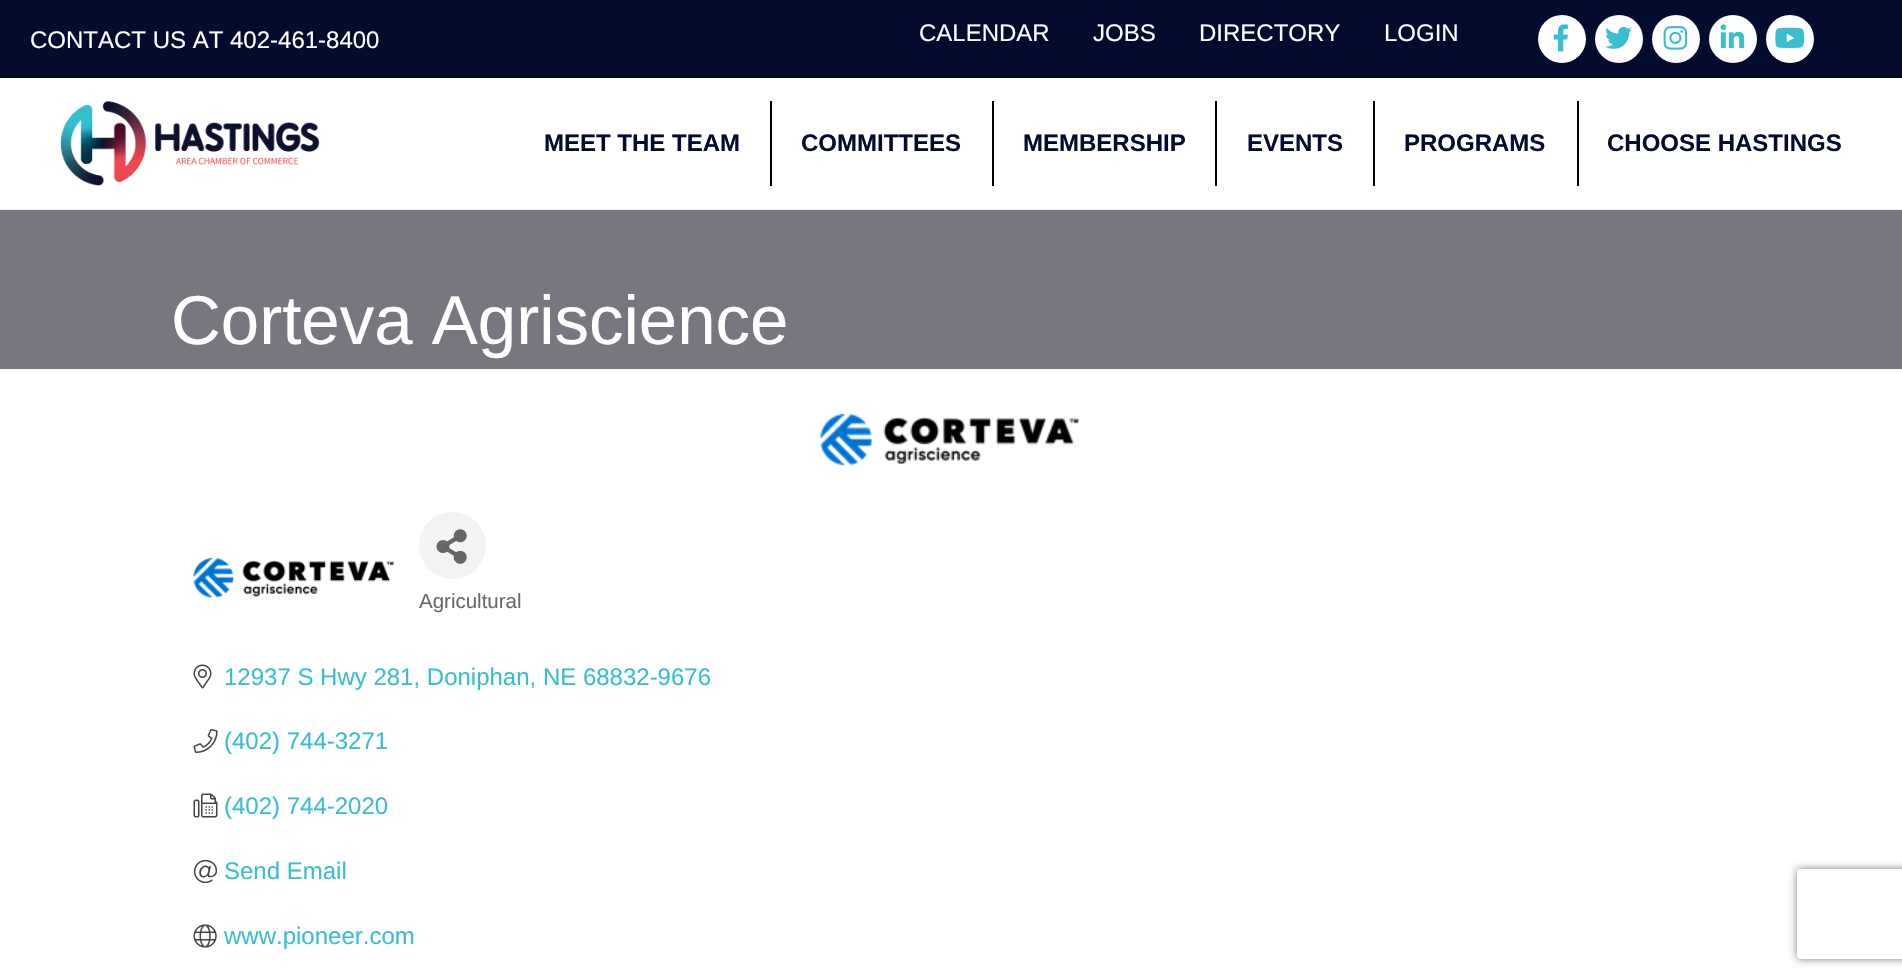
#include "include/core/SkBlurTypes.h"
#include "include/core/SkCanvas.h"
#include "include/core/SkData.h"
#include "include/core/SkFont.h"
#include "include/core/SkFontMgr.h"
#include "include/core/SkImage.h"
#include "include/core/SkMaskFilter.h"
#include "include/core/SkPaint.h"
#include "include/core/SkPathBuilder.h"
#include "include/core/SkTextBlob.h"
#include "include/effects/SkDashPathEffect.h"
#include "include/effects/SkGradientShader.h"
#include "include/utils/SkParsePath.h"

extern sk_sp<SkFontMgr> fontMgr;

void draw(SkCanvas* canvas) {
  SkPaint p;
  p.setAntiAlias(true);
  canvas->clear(SK_ColorWHITE);
  p.setColor(SkColorSetRGB(4, 11, 47));
  canvas->drawRect(SkRect::MakeLTRB(0, 0, 1902, 78), p);
  p.setColor(SK_ColorWHITE);
  canvas->drawCircle(1562, 39, 24, p);
  canvas->drawImageRect(SkImages::DeferredFromEncodedData(SkData::MakeFromFileName("images/1.png")), SkRect::MakeLTRB(1553, 24, 1569, 52), SkSamplingOptions());
  canvas->drawCircle(1619, 39, 24, p);
  canvas->drawImageRect(SkImages::DeferredFromEncodedData(SkData::MakeFromFileName("images/2.png")), SkRect::MakeLTRB(1605, 26, 1632, 49), SkSamplingOptions());
  canvas->drawCircle(1676, 39, 24, p);
  canvas->drawImageRect(SkImages::DeferredFromEncodedData(SkData::MakeFromFileName("images/3.png")), SkRect::MakeLTRB(1663, 26, 1688, 50), SkSamplingOptions());
  canvas->drawCircle(1733, 39, 24, p);
  canvas->drawImageRect(SkImages::DeferredFromEncodedData(SkData::MakeFromFileName("images/4.png")), SkRect::MakeLTRB(1720, 24, 1745, 48), SkSamplingOptions());
  canvas->drawCircle(1790, 39, 24, p);
  canvas->drawImageRect(SkImages::DeferredFromEncodedData(SkData::MakeFromFileName("images/5.png")), SkRect::MakeLTRB(1775, 27, 1805, 48), SkSamplingOptions());
  p.setColor(SkColorSetRGB(239, 239, 239));
  canvas->drawRect(SkRect::MakeLTRB(0, 209, 1902, 210), p);
  canvas->drawImageRect(SkImages::DeferredFromEncodedData(SkData::MakeFromFileName("images/6.png")), SkRect::MakeLTRB(60, 101, 320, 186), SkSamplingOptions());
  p.setColor(SK_ColorBLACK);
  canvas->drawRect(SkRect::MakeLTRB(770, 101, 772, 186), p);
  canvas->drawRect(SkRect::MakeLTRB(992, 101, 994, 186), p);
  canvas->drawRect(SkRect::MakeLTRB(1215, 101, 1217, 186), p);
  canvas->drawRect(SkRect::MakeLTRB(1373, 101, 1375, 186), p);
  canvas->drawRect(SkRect::MakeLTRB(1577, 101, 1579, 186), p);
  p.setColor(SkColorSetRGB(120, 118, 127));
  canvas->drawRect(SkRect::MakeLTRB(0, 210, 1902, 369), p);
  canvas->drawImageRect(SkImages::DeferredFromEncodedData(SkData::MakeFromFileName("images/7.png")), SkRect::MakeLTRB(820, 414, 1079, 466), SkSamplingOptions());
  canvas->drawImageRect(SkImages::DeferredFromEncodedData(SkData::MakeFromFileName("images/8.png")), SkRect::MakeLTRB(193, 558, 394, 598), SkSamplingOptions());
  p.setColor(SkColorSetRGB(243, 243, 243));
  canvas->drawCircle(452.5f, 545.5f, 33.5f, p);
  canvas->drawImageRect(SkImages::DeferredFromEncodedData(SkData::MakeFromFileName("images/9.png")), SkRect::MakeLTRB(436, 529, 467, 564), SkSamplingOptions());
  canvas->drawImageRect(SkImages::DeferredFromEncodedData(SkData::MakeFromFileName("images/10.png")), SkRect::MakeLTRB(193, 664, 212, 689), SkSamplingOptions());
  canvas->drawImageRect(SkImages::DeferredFromEncodedData(SkData::MakeFromFileName("images/11.png")), SkRect::MakeLTRB(193, 729, 218, 753), SkSamplingOptions());
  canvas->drawImageRect(SkImages::DeferredFromEncodedData(SkData::MakeFromFileName("images/12.png")), SkRect::MakeLTRB(193, 793, 218, 818), SkSamplingOptions());
  canvas->drawImageRect(SkImages::DeferredFromEncodedData(SkData::MakeFromFileName("images/13.png")), SkRect::MakeLTRB(193, 859, 218, 884), SkSamplingOptions());
  canvas->drawImageRect(SkImages::DeferredFromEncodedData(SkData::MakeFromFileName("images/14.png")), SkRect::MakeLTRB(193, 924, 217, 948), SkSamplingOptions());
  canvas->save();
  canvas->clipPath(SkPathBuilder(SkPathFillType::kEvenOdd).moveTo(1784, 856).lineTo(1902, 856).lineTo(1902, 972).lineTo(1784, 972).close().moveTo(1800, 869).lineTo(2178, 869).cubicTo(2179.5f, 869, 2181, 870.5f, 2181, 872).lineTo(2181, 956).cubicTo(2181, 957.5f, 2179.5f, 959, 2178, 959).lineTo(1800, 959).cubicTo(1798.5f, 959, 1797, 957.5f, 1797, 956).lineTo(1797, 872).cubicTo(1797, 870.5f, 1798.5f, 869, 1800, 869).close().detach(), true);
  p.setColor(SkColorSetRGB(128, 128, 128));
  p.setMaskFilter(SkMaskFilter::MakeBlur(kNormal_SkBlurStyle, 4));
  canvas->drawRoundRect(SkRect::MakeLTRB(1797, 869, 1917, 959), 3, 3, p);
  p.setMaskFilter(nullptr);
  canvas->restore();
  SkFont font1(fontMgr->matchFamilyStyle("Liberation Sans", SkFontStyle::Normal()), 24);
  font1.setSubpixel(true);
  p.setColor(SK_ColorWHITE);
  canvas->drawString("CONTACT US AT 402-461-8400", 30, 48, font1, p);
  canvas->drawString("CALENDAR", 919, 41, font1, p);
  canvas->drawString("JOBS", 1093, 41, font1, p);
  canvas->drawString("DIRECTORY", 1199, 41, font1, p);
  canvas->drawString("LOGIN", 1384, 41, font1, p);
  SkFont font2(fontMgr->matchFamilyStyle("Liberation Sans", SkFontStyle::Bold()), 24);
  font2.setSubpixel(true);
  p.setColor(SkColorSetRGB(4, 11, 47));
  canvas->drawString("MEET THE TEAM", 544, 151, font2, p);
  canvas->drawString("COMMITTEES", 801, 151, font2, p);
  canvas->drawString("MEMBERSHIP", 1023, 151, font2, p);
  canvas->drawString("EVENTS", 1247, 151, font2, p);
  canvas->drawString("PROGRAMS", 1404, 151, font2, p);
  canvas->drawString("CHOOSE HASTINGS", 1607, 151, font2, p);
  SkFont font3(fontMgr->matchFamilyStyle("Liberation Sans", SkFontStyle::Normal()), 69);
  font3.setSubpixel(true);
  p.setColor(SK_ColorWHITE);
  canvas->drawString("Corteva Agriscience", 171, 344, font3, p);
  SkFont font4(fontMgr->matchFamilyStyle("Liberation Sans", SkFontStyle::Normal()), 20.5f);
  font4.setSubpixel(true);
  p.setColor(SkColorSetRGB(105, 105, 105));
  canvas->drawString("Agricultural", 419, 608, font4, p);
  p.setColor(SkColorSetRGB(58, 189, 207));
  canvas->drawString("12937 S Hwy 281, Doniphan, NE 68832-9676", 224, 685, font1, p);
  canvas->drawString("(402) 744-3271", 224, 749, font1, p);
  canvas->drawString("(402) 744-2020", 224, 814, font1, p);
  canvas->drawString("Send Email", 224, 879, font1, p);
  canvas->drawString("www.pioneer.com", 224, 944, font1, p);
}
